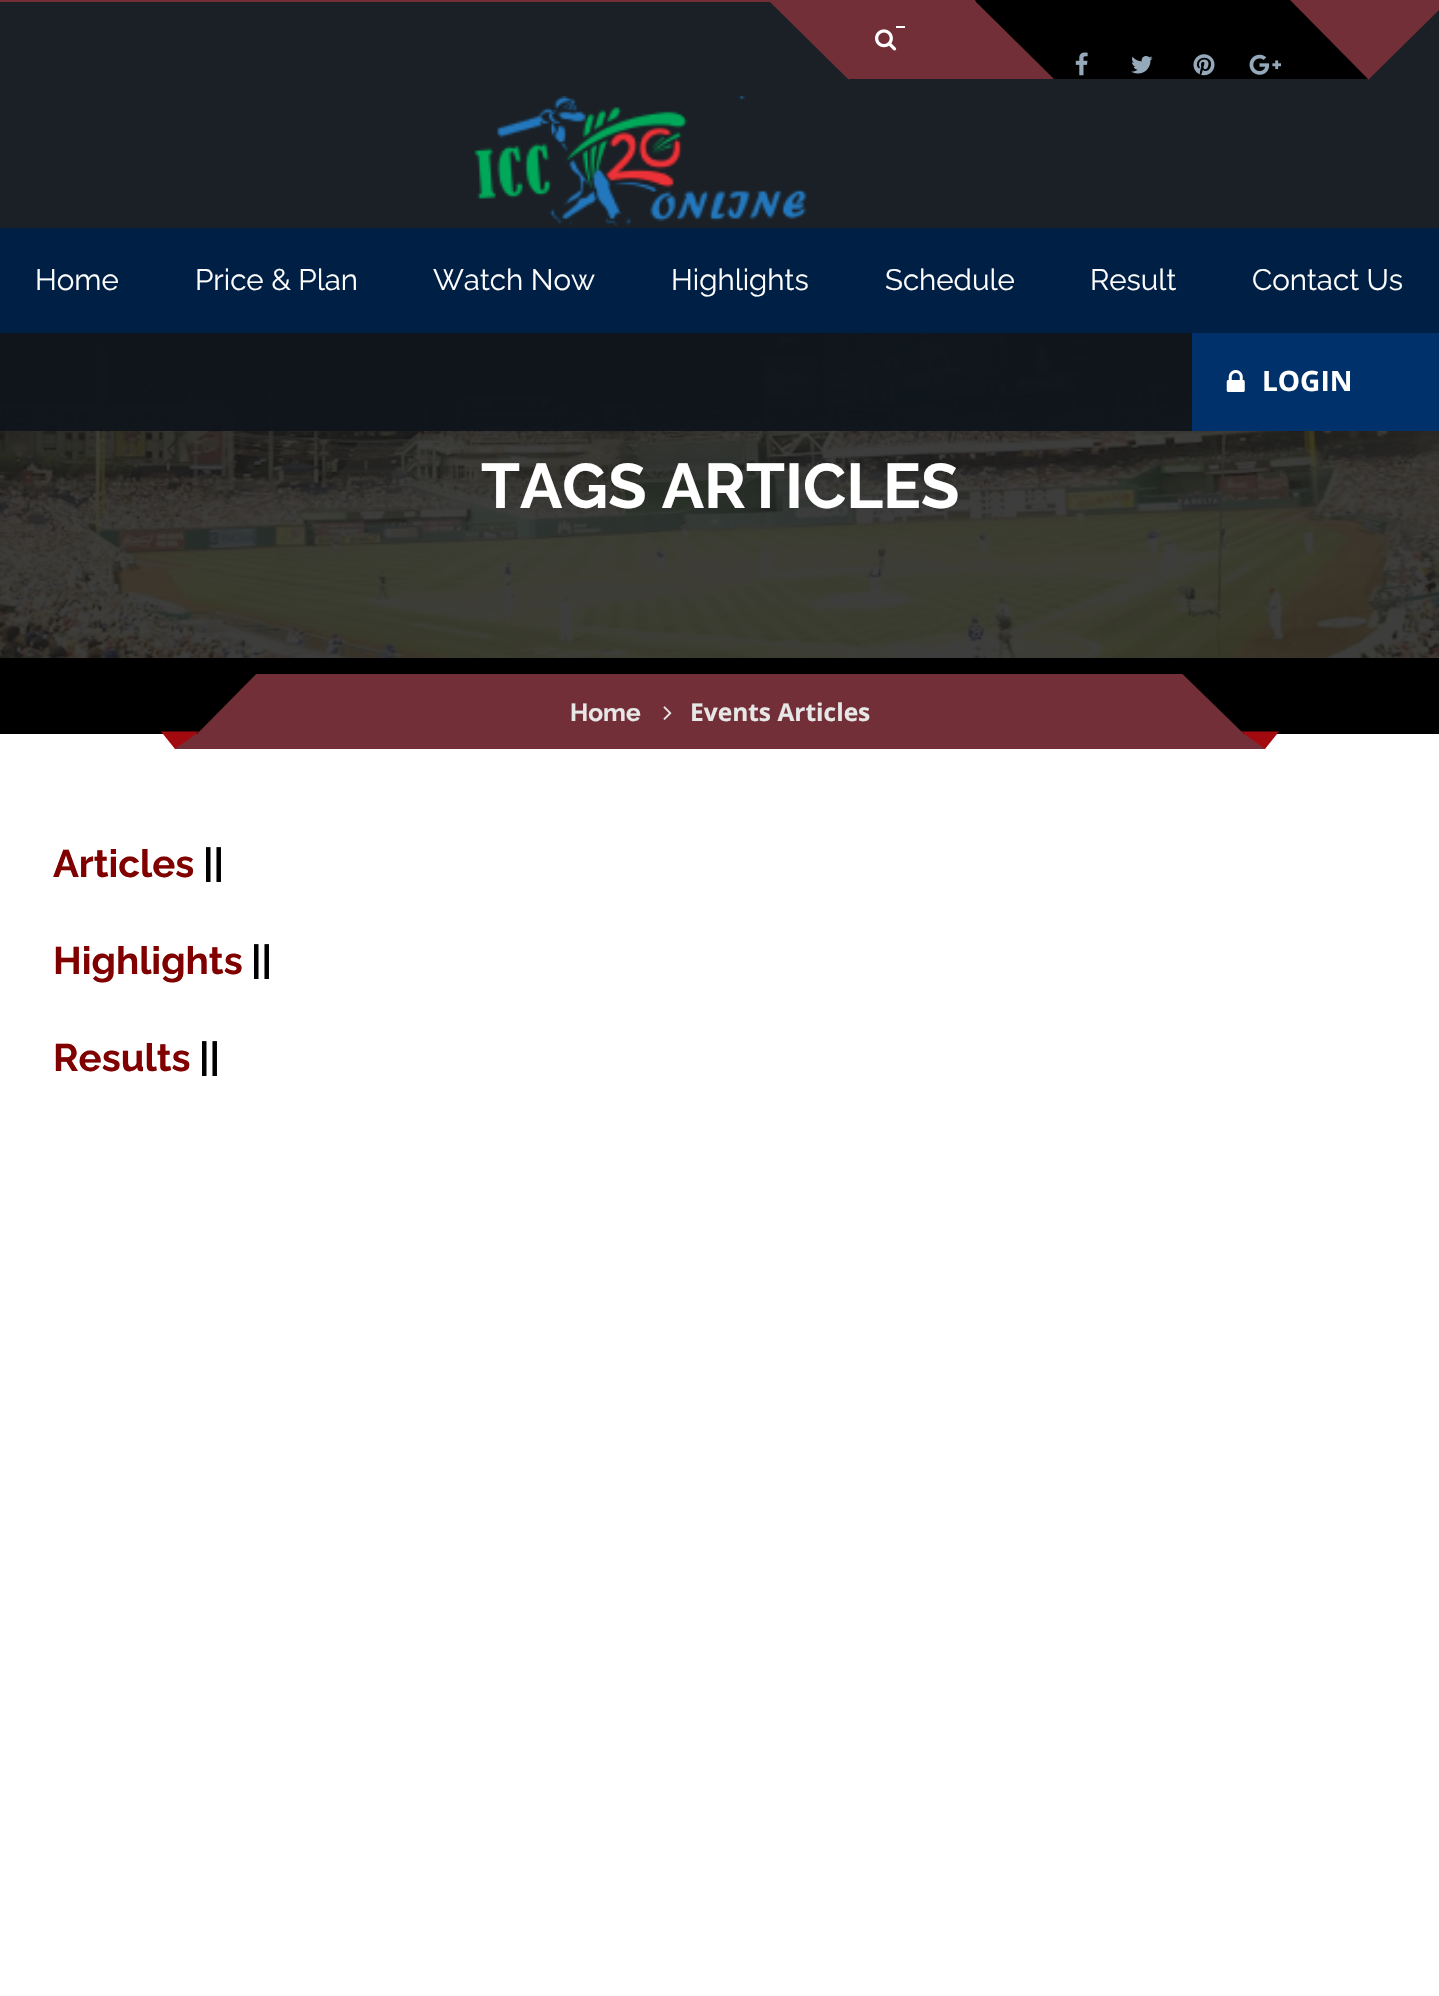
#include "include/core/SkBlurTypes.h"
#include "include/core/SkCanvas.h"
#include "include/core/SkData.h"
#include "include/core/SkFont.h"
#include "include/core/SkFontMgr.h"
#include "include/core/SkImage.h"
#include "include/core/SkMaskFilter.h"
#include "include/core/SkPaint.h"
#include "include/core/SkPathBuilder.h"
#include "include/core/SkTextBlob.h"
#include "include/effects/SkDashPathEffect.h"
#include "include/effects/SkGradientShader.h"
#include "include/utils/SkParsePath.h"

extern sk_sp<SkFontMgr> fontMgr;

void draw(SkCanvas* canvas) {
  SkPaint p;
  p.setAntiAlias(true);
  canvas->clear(SK_ColorWHITE);
  canvas->drawImageRect(SkImages::DeferredFromEncodedData(SkData::MakeFromFileName("images/8.png")), SkRect::MakeLTRB(0, 333, 1439, 658), SkSamplingOptions());
  p.setColor(SkColorSetARGB(242, 14, 20, 26));
  canvas->drawRect(SkRect::MakeLTRB(0, 2, 1439, 431), p);
  p.setColor(SkColorSetRGB(114, 47, 55));
  canvas->drawRect(SkRect::MakeLTRB(0, 0, 1439, 2), p);
  canvas->drawRect(SkRect::MakeLTRB(849, 2, 1368, 79), p);
  canvas->drawPath(SkPathBuilder().moveTo(849, 2).lineTo(849, 80).lineTo(770, 2).close().detach(), p);
  p.setColor(SK_ColorWHITE);
  canvas->drawRect(SkRect::MakeLTRB(896, 26, 905, 28), p);
  canvas->drawImageRect(SkImages::DeferredFromEncodedData(SkData::MakeFromFileName("images/1.png")), SkRect::MakeLTRB(875, 29, 897, 51), SkSamplingOptions());
  p.setColor(SK_ColorBLACK);
  canvas->drawPath(SkPathBuilder().moveTo(976, 2).lineTo(1292, 2).lineTo(1368, 79).lineTo(1054, 79).close().detach(), p);
  canvas->drawPath(SkPathBuilder().moveTo(975, 0).lineTo(1290, 0).lineTo(1292, 2).lineTo(976, 2).close().detach(), p);
  canvas->drawImageRect(SkImages::DeferredFromEncodedData(SkData::MakeFromFileName("images/2.png")), SkRect::MakeLTRB(1075, 52, 1088, 76), SkSamplingOptions());
  canvas->drawImageRect(SkImages::DeferredFromEncodedData(SkData::MakeFromFileName("images/3.png")), SkRect::MakeLTRB(1131, 56, 1153, 74), SkSamplingOptions());
  canvas->drawImageRect(SkImages::DeferredFromEncodedData(SkData::MakeFromFileName("images/4.png")), SkRect::MakeLTRB(1193, 54, 1215, 76), SkSamplingOptions());
  canvas->drawImageRect(SkImages::DeferredFromEncodedData(SkData::MakeFromFileName("images/5.png")), SkRect::MakeLTRB(1249, 54, 1281, 75), SkSamplingOptions());
  p.setColor(SkColorSetRGB(114, 47, 55));
  canvas->drawPath(SkPathBuilder().moveTo(1368, 2).lineTo(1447, 2).lineTo(1368, 80).close().detach(), p);
  canvas->drawImageRect(SkImages::DeferredFromEncodedData(SkData::MakeFromFileName("images/6.png")), SkRect::MakeLTRB(474, 96, 807, 226), SkSamplingOptions());
  p.setColor(SkColorSetRGB(0, 31, 68));
  canvas->drawRect(SkRect::MakeLTRB(0, 228, 1439, 333), p);
  p.setColor(SkColorSetRGB(0, 49, 107));
  canvas->drawRect(SkRect::MakeLTRB(1192, 333, 1439, 431), p);
  canvas->drawImageRect(SkImages::DeferredFromEncodedData(SkData::MakeFromFileName("images/7.png")), SkRect::MakeLTRB(1226, 370, 1245, 392), SkSamplingOptions());
  p.setColor(SK_ColorBLACK);
  canvas->drawRect(SkRect::MakeLTRB(256, 658, 1183, 674), p);
  p.setColor(SkColorSetRGB(114, 47, 55));
  canvas->drawRect(SkRect::MakeLTRB(175, 674, 1265, 749), p);
  p.setColor(SK_ColorBLACK);
  canvas->drawPath(SkPathBuilder().moveTo(-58, 658).lineTo(272, 658).lineTo(197, 734).lineTo(-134, 734).close().detach(), p);
  canvas->drawImageRect(SkImages::DeferredFromEncodedData(SkData::MakeFromFileName("images/9.png")), SkRect::MakeLTRB(663, 706, 672, 720), SkSamplingOptions());
  p.setColor(SkColorSetRGB(162, 10, 16));
  canvas->drawPath(SkPathBuilder().moveTo(161, 731.5f).lineTo(199.5f, 731.5f).lineTo(175, 749).close().detach(), p);
  p.setColor(SK_ColorBLACK);
  canvas->drawPath(SkPathBuilder().moveTo(1166, 658).lineTo(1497, 658).lineTo(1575, 734).lineTo(1244, 734).close().detach(), p);
  p.setColor(SkColorSetRGB(162, 10, 16));
  canvas->drawPath(SkPathBuilder().moveTo(1241, 731.5f).lineTo(1279, 731.5f).lineTo(1265, 749).close().detach(), p);
  SkFont font1(fontMgr->matchFamilyStyle("Raleway", SkFontStyle::Normal()), 29.5f);
  font1.setSubpixel(true);
  p.setColor(SK_ColorWHITE);
  canvas->drawString("Home", 35, 290, font1, p);
  canvas->drawString("Price & Plan", 195, 290, font1, p);
  canvas->drawString("Watch Now", 433, 290, font1, p);
  canvas->drawString("Highlights", 671, 290, font1, p);
  canvas->drawString("Schedule", 885, 290, font1, p);
  canvas->drawString("Result", 1090, 290, font1, p);
  canvas->drawString("Contact Us", 1252, 290, font1, p);
  SkFont font2(fontMgr->matchFamilyStyle("Open Sans", SkFontStyle::Bold()), 28);
  font2.setSubpixel(true);
  canvas->drawString("LOGIN", 1262, 391, font2, p);
  SkFont font3(fontMgr->matchFamilyStyle("Raleway", SkFontStyle::Bold()), 63);
  font3.setSubpixel(true);
  canvas->drawString("TAGS ARTICLES", 481, 508, font3, p);
  SkFont font4(fontMgr->matchFamilyStyle("Raleway", SkFontStyle::Bold()), 24.5f);
  font4.setSubpixel(true);
  p.setColor(SkColorSetRGB(231, 231, 231));
  canvas->drawString("Home", 570, 721, font4, p);
  SkFont font5(fontMgr->matchFamilyStyle("Open Sans", SkFontStyle::Bold()), 24.5f);
  font5.setSubpixel(true);
  canvas->drawString("Events Articles", 690, 721, font5, p);
  SkFont font6(fontMgr->matchFamilyStyle("Raleway", SkFontStyle::Bold()), 38.5f);
  font6.setSubpixel(true);
  p.setColor(SkColorSetRGB(128, 0, 0));
  canvas->drawString("Articles", 53, 877, font6, p);
  p.setColor(SK_ColorBLACK);
  canvas->drawString("||", 203, 877, font6, p);
  p.setColor(SkColorSetRGB(128, 0, 0));
  canvas->drawString("Highlights", 53, 974, font6, p);
  p.setColor(SK_ColorBLACK);
  canvas->drawString("||", 251, 974, font6, p);
  p.setColor(SkColorSetRGB(128, 0, 0));
  canvas->drawString("Results", 53, 1071, font6, p);
  p.setColor(SK_ColorBLACK);
  canvas->drawString("||", 199, 1071, font6, p);
}
